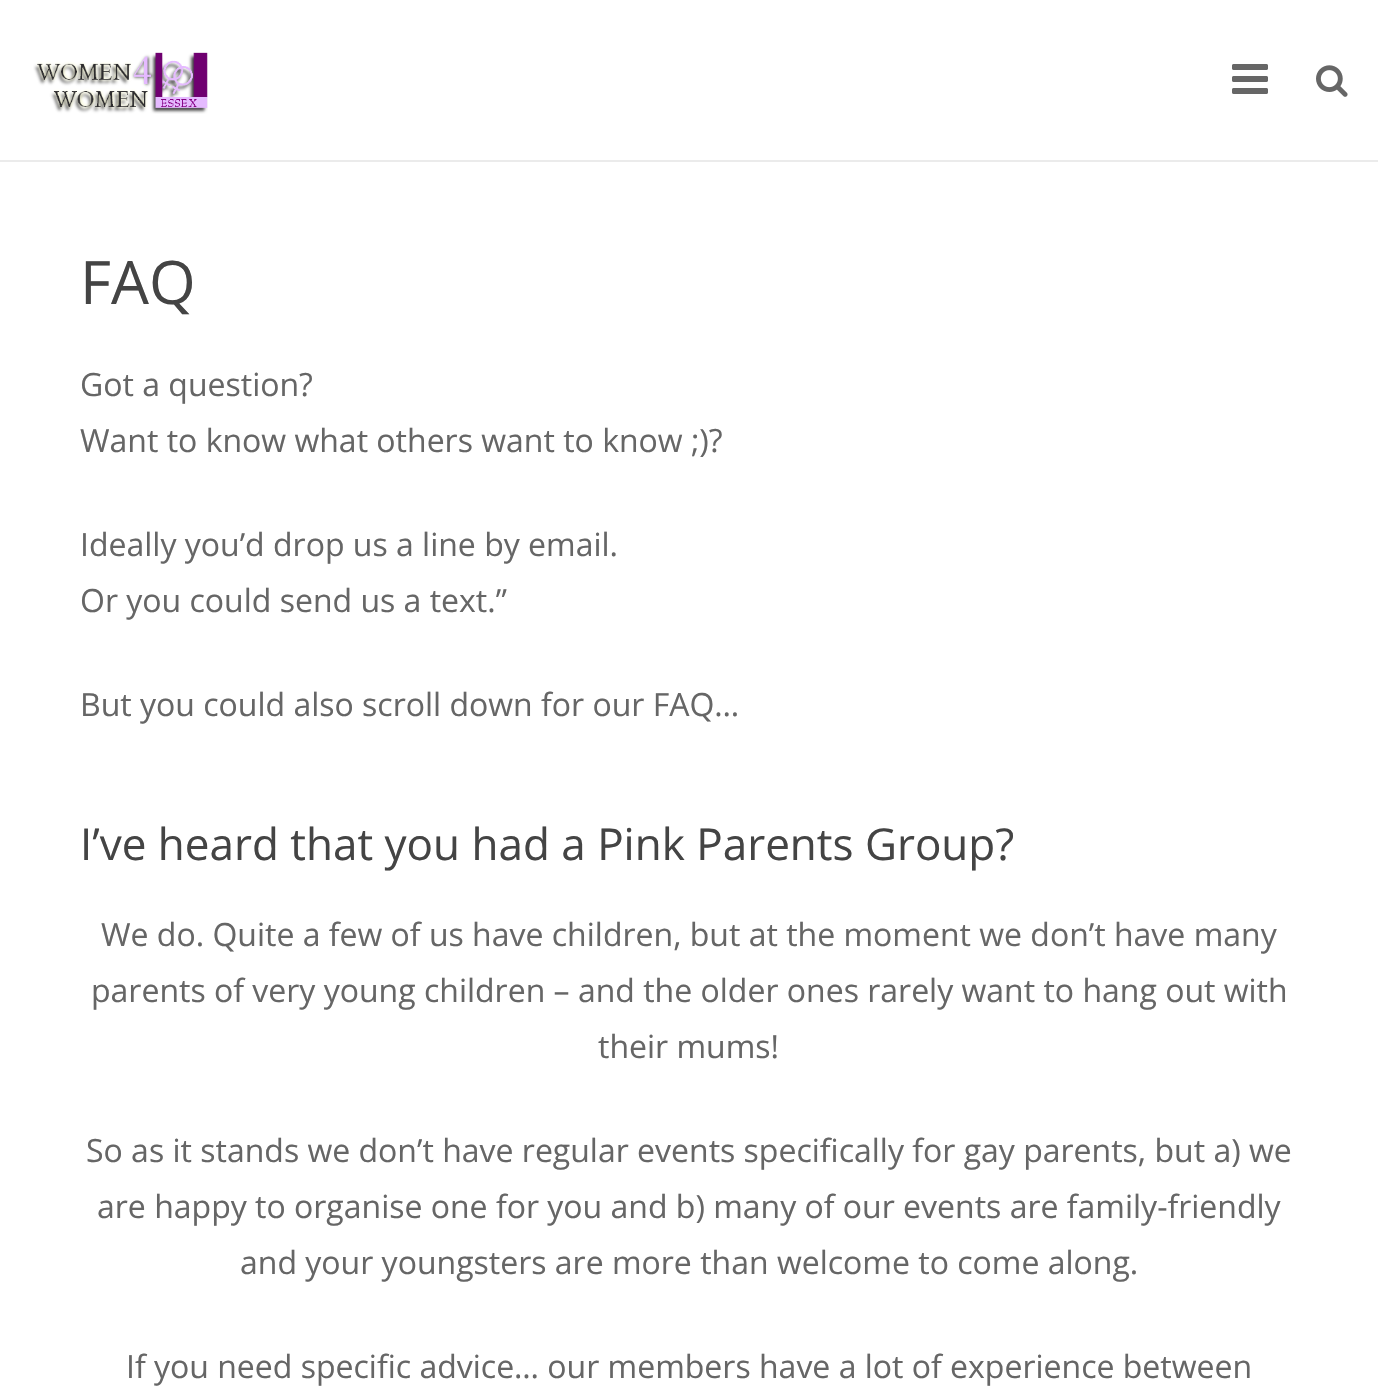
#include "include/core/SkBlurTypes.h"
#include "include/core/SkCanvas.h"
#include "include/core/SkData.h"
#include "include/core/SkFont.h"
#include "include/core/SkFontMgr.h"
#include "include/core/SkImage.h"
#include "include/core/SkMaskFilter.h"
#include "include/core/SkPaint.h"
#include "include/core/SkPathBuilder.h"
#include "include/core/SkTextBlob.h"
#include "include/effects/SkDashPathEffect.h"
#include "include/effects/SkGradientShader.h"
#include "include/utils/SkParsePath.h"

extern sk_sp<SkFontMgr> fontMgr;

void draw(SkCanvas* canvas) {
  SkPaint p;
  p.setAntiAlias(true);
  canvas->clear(SK_ColorWHITE);
  p.setColor(SkColorSetRGB(235, 235, 235));
  canvas->drawRect(SkRect::MakeLTRB(0, 160, 1378, 162), p);
  canvas->drawImageRect(SkImages::DeferredFromEncodedData(SkData::MakeFromFileName("images/1.png")), SkRect::MakeLTRB(33, 52, 208, 114), SkSamplingOptions());
  canvas->drawImageRect(SkImages::DeferredFromEncodedData(SkData::MakeFromFileName("images/2.png")), SkRect::MakeLTRB(1232, 64, 1268, 94), SkSamplingOptions());
  canvas->drawImageRect(SkImages::DeferredFromEncodedData(SkData::MakeFromFileName("images/3.png")), SkRect::MakeLTRB(1316, 65, 1348, 97), SkSamplingOptions());
  SkFont font1(fontMgr->matchFamilyStyle("Open Sans", SkFontStyle::Normal()), 60);
  font1.setSubpixel(true);
  p.setColor(SkColorSetRGB(68, 68, 68));
  canvas->drawString("FAQ", 80, 304, font1, p);
  SkFont font2(fontMgr->matchFamilyStyle("Open Sans", SkFontStyle::Normal()), 32);
  font2.setSubpixel(true);
  p.setColor(SkColorSetRGB(102, 102, 102));
  canvas->drawString("Got a question?", 80, 396, font2, p);
  canvas->drawString("Want to know what others want to know ;)?", 80, 452, font2, p);
  canvas->drawString("Ideally you’d drop us a line by email.", 80, 556, font2, p);
  canvas->drawString("Or you could send us a text.”", 80, 612, font2, p);
  canvas->drawString("But you could also scroll down for our FAQ…", 80, 716, font2, p);
  SkFont font3(fontMgr->matchFamilyStyle("Open Sans", SkFontStyle::Normal()), 44);
  font3.setSubpixel(true);
  p.setColor(SkColorSetRGB(68, 68, 68));
  canvas->drawString("I’ve heard that you had a Pink Parents Group?", 80, 860, font3, p);
  p.setColor(SkColorSetRGB(102, 102, 102));
  canvas->drawString("We do. Quite a few of us have children, but at the moment we don’t have many", 101, 946, font2, p);
  canvas->drawString("parents of very young children – and the older ones rarely want to hang out with", 91, 1002, font2, p);
  canvas->drawString("their mums!", 598, 1058, font2, p);
  canvas->drawString("So as it stands we don’t have regular events specifically for gay parents, but a) we", 86, 1162, font2, p);
  canvas->drawString("are happy to organise one for you and b) many of our events are family-friendly", 97, 1218, font2, p);
  canvas->drawString("and your youngsters are more than welcome to come along.", 240, 1274, font2, p);
  canvas->drawString("If you need specific advice… our members have a lot of experience between", 126, 1378, font2, p);
}
